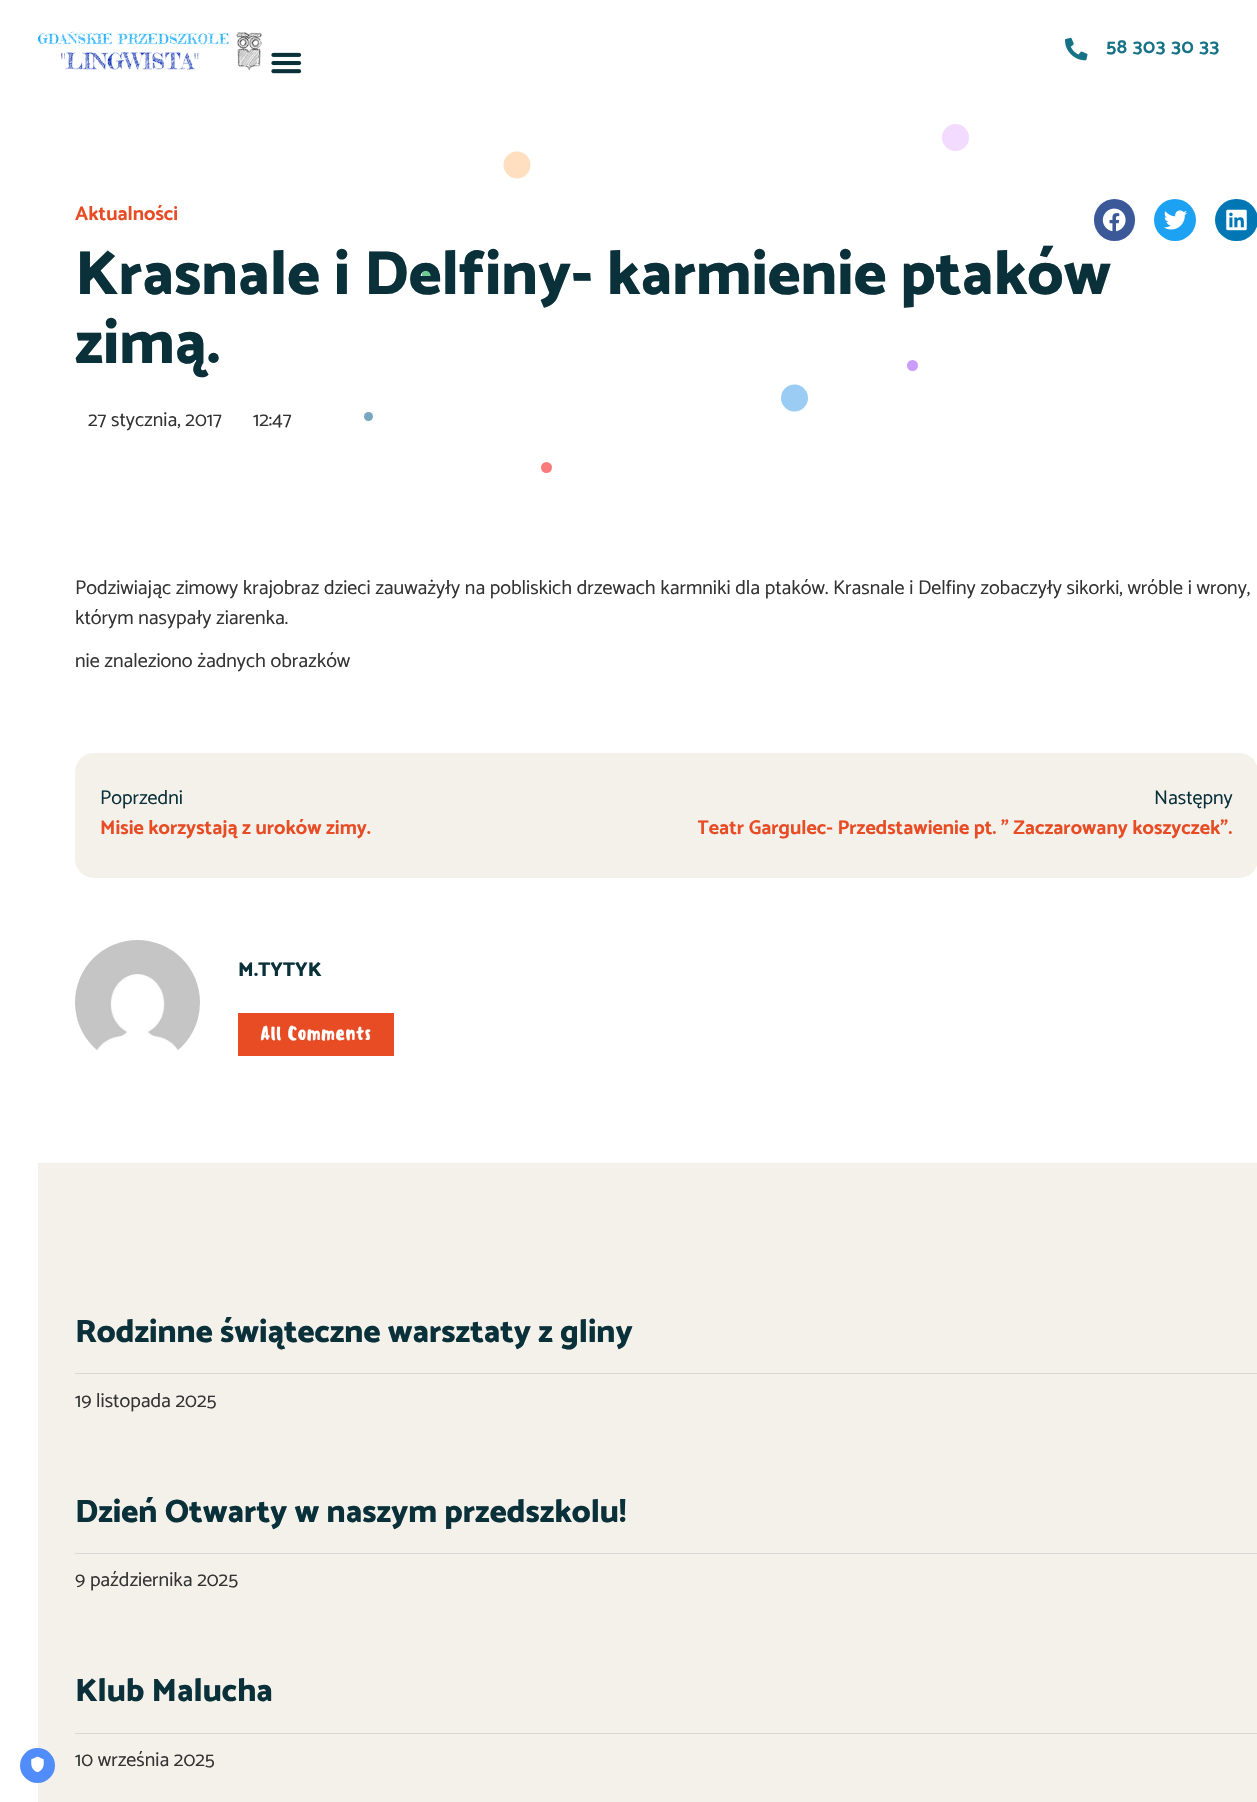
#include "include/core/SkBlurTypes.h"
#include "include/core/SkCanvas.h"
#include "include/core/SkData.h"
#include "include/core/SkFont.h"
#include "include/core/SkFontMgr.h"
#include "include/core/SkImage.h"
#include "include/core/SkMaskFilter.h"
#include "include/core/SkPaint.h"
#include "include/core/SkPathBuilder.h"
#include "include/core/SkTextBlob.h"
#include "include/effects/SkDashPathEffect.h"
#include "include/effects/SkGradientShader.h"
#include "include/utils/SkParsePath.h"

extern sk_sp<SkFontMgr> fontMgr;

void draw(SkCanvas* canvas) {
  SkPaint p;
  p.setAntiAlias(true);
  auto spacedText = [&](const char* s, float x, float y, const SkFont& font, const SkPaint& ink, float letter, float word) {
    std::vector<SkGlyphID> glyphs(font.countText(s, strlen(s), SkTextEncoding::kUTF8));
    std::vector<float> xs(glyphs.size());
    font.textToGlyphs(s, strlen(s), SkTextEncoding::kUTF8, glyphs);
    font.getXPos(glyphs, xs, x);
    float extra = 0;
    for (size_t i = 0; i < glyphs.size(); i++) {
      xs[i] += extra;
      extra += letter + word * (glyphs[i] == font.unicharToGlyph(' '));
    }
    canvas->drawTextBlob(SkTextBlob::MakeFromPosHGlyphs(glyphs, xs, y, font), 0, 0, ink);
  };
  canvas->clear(SK_ColorWHITE);
  canvas->drawImageRect(SkImages::DeferredFromEncodedData(SkData::MakeFromFileName("images/1.png")), SkRect::MakeLTRB(37, 31, 262, 70), SkSamplingOptions());
  canvas->drawImageRect(SkImages::DeferredFromEncodedData(SkData::MakeFromFileName("images/2.png")), SkRect::MakeLTRB(1065, 37, 1088, 61), SkSamplingOptions());
  canvas->drawImageRect(SkImages::DeferredFromEncodedData(SkData::MakeFromFileName("images/3.png")), SkRect::MakeLTRB(271, 52, 302, 74), SkSamplingOptions());
  p.setColor(SkColorSetRGB(244, 241, 234));
  canvas->drawRect(SkRect::MakeLTRB(38, 1163, 1257, 1802), p);
  p.setColor(SkColorSetRGB(80, 141, 250));
  canvas->drawCircle(37.5f, 1765.5f, 17.5f, p);
  canvas->drawImageRect(SkImages::DeferredFromEncodedData(SkData::MakeFromFileName("images/4.png")), SkRect::MakeLTRB(31, 1756, 44, 1773), SkSamplingOptions());
  p.setColor(SkColorSetRGB(110, 205, 146));
  canvas->drawCircle(427.5f, 274.5f, 5.5f, p);
  p.setColor(SkColorSetRGB(120, 167, 194));
  canvas->drawCircle(368.5f, 416.5f, 4.5f, p);
  p.setColor(SkColorSetRGB(250, 123, 122));
  canvas->drawCircle(546.5f, 467.5f, 5.5f, p);
  p.setColor(SkColorSetRGB(203, 156, 255));
  canvas->drawCircle(912.5f, 365.5f, 5.5f, p);
  p.setColor(SkColorSetRGB(255, 223, 192));
  canvas->drawCircle(517, 165, 13.5f, p);
  p.setColor(SkColorSetRGB(154, 204, 244));
  canvas->drawCircle(794.5f, 398, 13.5f, p);
  p.setColor(SkColorSetRGB(243, 219, 255));
  canvas->drawCircle(955.5f, 137.5f, 13.5f, p);
  p.setColor(SkColorSetRGB(59, 89, 152));
  canvas->drawRoundRect(SkRect::MakeLTRB(1094, 199, 1135, 241), 20.5f, 20.5f, p);
  canvas->drawImageRect(SkImages::DeferredFromEncodedData(SkData::MakeFromFileName("images/5.png")), SkRect::MakeLTRB(1102, 208, 1126, 232), SkSamplingOptions());
  p.setColor(SkColorSetRGB(29, 161, 242));
  canvas->drawCircle(1175, 220, 21, p);
  canvas->drawImageRect(SkImages::DeferredFromEncodedData(SkData::MakeFromFileName("images/6.png")), SkRect::MakeLTRB(1164, 210, 1187, 230), SkSamplingOptions());
  p.setColor(SkColorSetRGB(0, 119, 181));
  canvas->drawRoundRect(SkRect::MakeLTRB(1215, 199, 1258, 241), 21, 21, p);
  canvas->drawImageRect(SkImages::DeferredFromEncodedData(SkData::MakeFromFileName("images/7.png")), SkRect::MakeLTRB(1226, 209, 1247, 231), SkSamplingOptions());
  p.setColor(SkColorSetRGB(244, 241, 234));
  canvas->drawRoundRect(SkRect::MakeLTRB(75, 753, 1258, 878), 19, 19, p);
  canvas->drawImageRect(SkImages::DeferredFromEncodedData(SkData::MakeFromFileName("images/8.png")), SkRect::MakeLTRB(75, 940, 200, 1051), SkSamplingOptions());
  p.setColor(SkColorSetRGB(231, 76, 37));
  canvas->drawRect(SkRect::MakeLTRB(238, 1013, 394, 1056), p);
  p.setColor(SkColorSetRGB(216, 216, 216));
  canvas->drawRect(SkRect::MakeLTRB(75, 1373, 1257, 1374), p);
  canvas->drawRect(SkRect::MakeLTRB(75, 1553, 1257, 1554), p);
  canvas->drawRect(SkRect::MakeLTRB(75, 1733, 1257, 1734), p);
  SkFont font1(fontMgr->matchFamilyStyle("Catamaran", SkFontStyle::Bold()), 20);
  font1.setSubpixel(true);
  p.setColor(SkColorSetRGB(22, 114, 135));
  spacedText("58 303 30 33", 1106, 53, font1, p, 0.6f, 0);
  p.setColor(SkColorSetRGB(231, 76, 37));
  canvas->drawString("Aktualności", 75, 220, font1, p);
  SkFont font2(fontMgr->matchFamilyStyle("Catamaran", SkFontStyle(800, SkFontStyle::kNormal_Width, SkFontStyle::kUpright_Slant)), 62.5f);
  font2.setSubpixel(true);
  p.setColor(SkColorSetRGB(10, 48, 58));
  canvas->drawString("Krasnale i Delfiny- karmienie ptaków", 75, 294, font2, p);
  canvas->drawString("zimą.", 75, 363, font2, p);
  SkFont font3(fontMgr->matchFamilyStyle("Catamaran", SkFontStyle::Normal()), 20);
  font3.setSubpixel(true);
  p.setColor(SkColorSetRGB(51, 51, 51));
  canvas->drawString("27 stycznia, 2017", 88, 426, font3, p);
  canvas->drawString("12:47", 253, 426, font3, p);
  canvas->drawString("Podziwiając zimowy krajobraz dzieci zauważyły na pobliskich drzewach karmniki dla ptaków. Krasnale i Delfiny zobaczyły sikorki, wróble i wrony,", 75, 594, font3, p);
  canvas->drawString("którym nasypały ziarenka.", 75, 624, font3, p);
  canvas->drawString("nie znaleziono żadnych obrazków", 75, 667, font3, p);
  p.setColor(SkColorSetRGB(10, 48, 58));
  canvas->drawString("Poprzedni", 100, 804, font3, p);
  p.setColor(SkColorSetRGB(231, 76, 37));
  canvas->drawString("Misie korzystają z uroków zimy.", 100, 834, font1, p);
  p.setColor(SkColorSetRGB(10, 48, 58));
  canvas->drawString("Następny", 1154, 804, font3, p);
  canvas->save();
  canvas->clipRect(SkRect::MakeLTRB(698, 785, 1233, 845));
  p.setColor(SkColorSetRGB(231, 76, 37));
  canvas->drawString("Teatr Gargulec- Przedstawienie pt. ” Zaczarowany koszyczek”.", 697, 834, font1, p);
  canvas->restore();
  SkFont font4(fontMgr->matchFamilyStyle("Catamaran", SkFontStyle(800, SkFontStyle::kNormal_Width, SkFontStyle::kUpright_Slant)), 20);
  font4.setSubpixel(true);
  p.setColor(SkColorSetRGB(10, 48, 58));
  canvas->drawString("M.TYTYK", 238, 976, font4, p);
  SkFont font5(fontMgr->matchFamilyStyle("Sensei", SkFontStyle(500, SkFontStyle::kNormal_Width, SkFontStyle::kUpright_Slant)), 18.75f);
  font5.setSubpixel(true);
  p.setColor(SK_ColorWHITE);
  canvas->drawString("All Comments", 260, 1040, font5, p);
  SkFont font6(fontMgr->matchFamilyStyle("Catamaran", SkFontStyle(800, SkFontStyle::kNormal_Width, SkFontStyle::kUpright_Slant)), 32.5f);
  font6.setSubpixel(true);
  p.setColor(SkColorSetRGB(10, 48, 58));
  canvas->drawString("Rodzinne świąteczne warsztaty z gliny", 75, 1342, font6, p);
  p.setColor(SkColorSetRGB(51, 51, 51));
  canvas->drawString("19 listopada 2025", 75, 1407, font3, p);
  p.setColor(SkColorSetRGB(10, 48, 58));
  canvas->drawString("Dzień Otwarty w naszym przedszkolu!", 75, 1522, font6, p);
  p.setColor(SkColorSetRGB(51, 51, 51));
  canvas->drawString("9 października 2025", 75, 1586, font3, p);
  p.setColor(SkColorSetRGB(10, 48, 58));
  canvas->drawString("Klub Malucha", 75, 1701, font6, p);
  p.setColor(SkColorSetRGB(51, 51, 51));
  canvas->drawString("10 września 2025", 75, 1766, font3, p);
}
